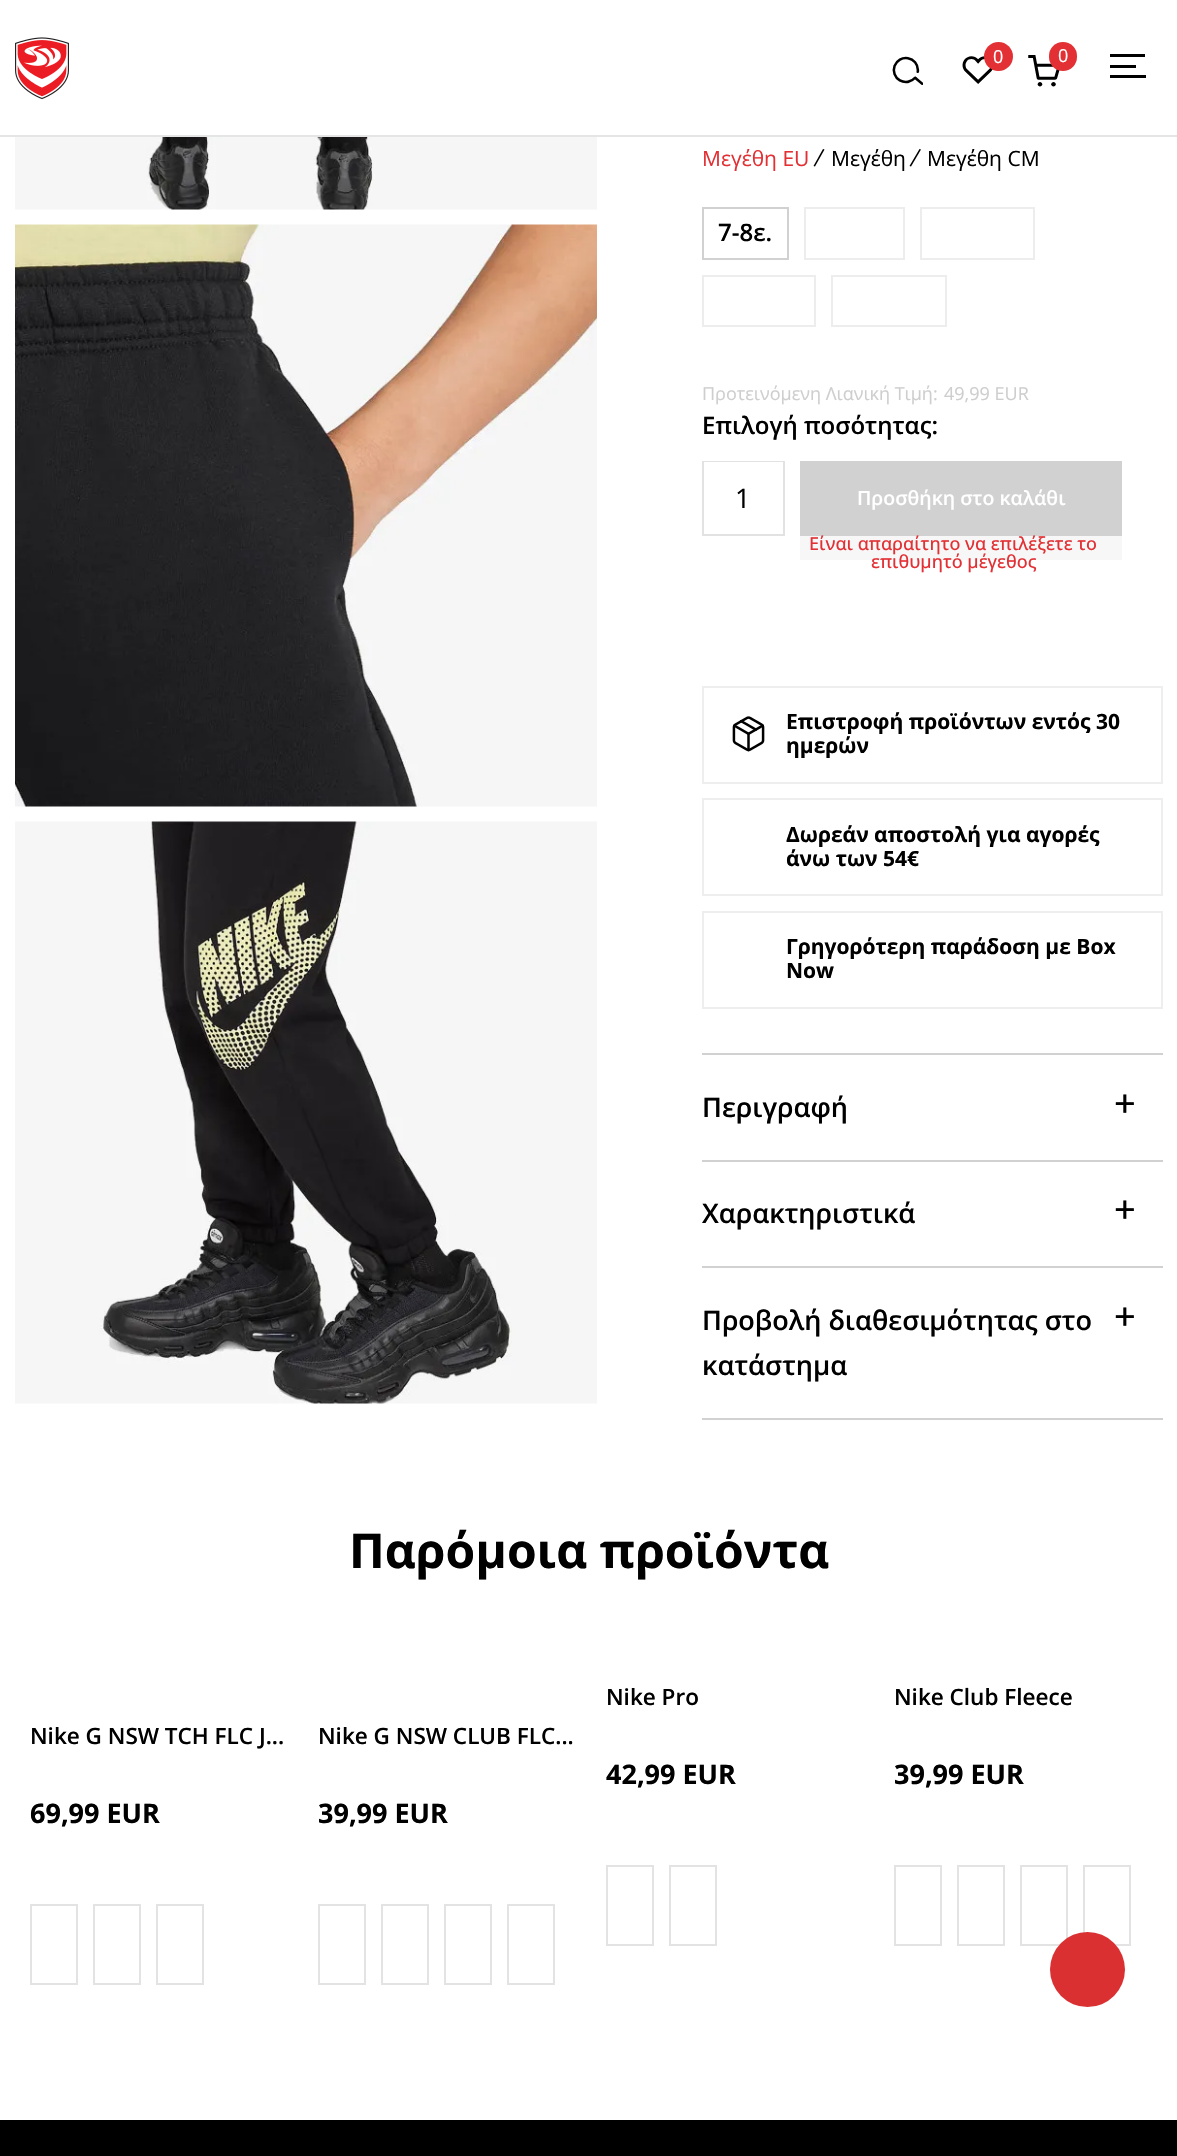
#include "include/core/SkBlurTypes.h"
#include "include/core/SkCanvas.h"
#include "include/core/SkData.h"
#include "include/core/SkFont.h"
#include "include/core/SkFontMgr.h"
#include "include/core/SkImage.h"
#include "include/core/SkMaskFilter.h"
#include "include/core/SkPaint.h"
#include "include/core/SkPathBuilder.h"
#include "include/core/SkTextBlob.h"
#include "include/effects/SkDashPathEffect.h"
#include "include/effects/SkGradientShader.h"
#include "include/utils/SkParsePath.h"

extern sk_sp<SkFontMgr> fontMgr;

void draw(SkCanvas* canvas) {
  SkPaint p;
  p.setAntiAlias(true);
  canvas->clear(SK_ColorWHITE);
  canvas->drawImageRect(SkImages::DeferredFromEncodedData(SkData::MakeFromFileName("images/1.png")), SkRect::MakeLTRB(892, 56, 923, 85), SkSamplingOptions());
  p.setColor(SkColorSetRGB(229, 229, 229));
  canvas->drawRect(SkRect::MakeLTRB(0, 135, 1177, 137), p);
  canvas->drawImageRect(SkImages::DeferredFromEncodedData(SkData::MakeFromFileName("images/2.png")), SkRect::MakeLTRB(15, 37, 69, 100), SkSamplingOptions());
  canvas->drawImageRect(SkImages::DeferredFromEncodedData(SkData::MakeFromFileName("images/3.png")), SkRect::MakeLTRB(962, 56, 993, 84), SkSamplingOptions());
  p.setColor(SkColorSetRGB(226, 48, 52));
  canvas->drawCircle(998.5f, 56.5f, 14.5f, p);
  canvas->drawImageRect(SkImages::DeferredFromEncodedData(SkData::MakeFromFileName("images/4.png")), SkRect::MakeLTRB(1028, 55, 1060, 87), SkSamplingOptions());
  canvas->drawRoundRect(SkRect::MakeLTRB(1049, 42, 1077, 71), 14, 14, p);
  p.setColor(SK_ColorBLACK);
  canvas->drawRect(SkRect::MakeLTRB(1110, 65, 1136, 68), p);
  canvas->drawRect(SkRect::MakeLTRB(1110, 54, 1145, 57), p);
  canvas->drawRect(SkRect::MakeLTRB(1110, 75, 1146, 78), p);
  canvas->drawImageRect(SkImages::DeferredFromEncodedData(SkData::MakeFromFileName("images/5.png")), SkRect::MakeLTRB(15, 137, 597, 210), SkSamplingOptions());
  canvas->drawImageRect(SkImages::DeferredFromEncodedData(SkData::MakeFromFileName("images/6.png")), SkRect::MakeLTRB(15, 224, 597, 807), SkSamplingOptions());
  canvas->drawImageRect(SkImages::DeferredFromEncodedData(SkData::MakeFromFileName("images/7.png")), SkRect::MakeLTRB(15, 821, 597, 1404), SkSamplingOptions());
  canvas->drawPath(SkPathBuilder().moveTo(823, 149).lineTo(824.5f, 149.5f).lineTo(815, 166.5f).lineTo(813.5f, 166).close().detach(), p);
  canvas->drawPath(SkPathBuilder().moveTo(919.5f, 149).lineTo(921, 149.5f).lineTo(911, 166.5f).lineTo(909.5f, 166).close().detach(), p);
  p.setStyle(SkPaint::kStroke_Style);
  p.setStrokeWidth(2);
  p.setColor(SkColorSetRGB(209, 209, 209));
  canvas->drawRect(SkRect::MakeLTRB(703, 208, 788, 259), p);
  p.setColor(SkColorSetRGB(237, 237, 237));
  canvas->drawRect(SkRect::MakeLTRB(805, 208, 904, 259), p);
  canvas->drawRect(SkRect::MakeLTRB(921, 208, 1034, 259), p);
  canvas->drawRect(SkRect::MakeLTRB(703, 276, 815, 326), p);
  canvas->drawRect(SkRect::MakeLTRB(832, 276, 946, 326), p);
  p.setColor(SkColorSetRGB(226, 226, 226));
  canvas->drawRect(SkRect::MakeLTRB(703, 462, 784, 535), p);
  p.setStyle(SkPaint::kFill_Style);
  p.setColor(SK_ColorWHITE);
  canvas->drawRect(SkRect::MakeLTRB(704, 462, 783, 463), p);
  p.setColor(SkColorSetRGB(209, 209, 209));
  canvas->drawRect(SkRect::MakeLTRB(800, 461, 1122, 536), p);
  p.setColor(SkColorSetRGB(247, 247, 247));
  canvas->drawRect(SkRect::MakeLTRB(800, 536, 1122, 560), p);
  p.setColor(SkColorSetRGB(238, 238, 238));
  canvas->drawRect(SkRect::MakeLTRB(702, 686, 1163, 688), p);
  canvas->drawRect(SkRect::MakeLTRB(702, 782, 786, 784), p);
  canvas->drawRect(SkRect::MakeLTRB(702, 686, 704, 783), p);
  canvas->drawImageRect(SkImages::DeferredFromEncodedData(SkData::MakeFromFileName("images/8.png")), SkRect::MakeLTRB(732, 716, 765, 752), SkSamplingOptions());
  canvas->drawRect(SkRect::MakeLTRB(1161, 686, 1163, 783), p);
  canvas->drawRect(SkRect::MakeLTRB(786, 782, 1163, 784), p);
  canvas->drawRect(SkRect::MakeLTRB(702, 798, 1163, 800), p);
  canvas->drawRect(SkRect::MakeLTRB(702, 894, 786, 896), p);
  canvas->drawRect(SkRect::MakeLTRB(702, 798, 704, 896), p);
  canvas->drawRect(SkRect::MakeLTRB(1161, 798, 1163, 896), p);
  canvas->drawRect(SkRect::MakeLTRB(786, 894, 1163, 896), p);
  canvas->drawRect(SkRect::MakeLTRB(702, 911, 1163, 913), p);
  canvas->drawRect(SkRect::MakeLTRB(702, 1007, 786, 1009), p);
  canvas->drawRect(SkRect::MakeLTRB(702, 911, 704, 1008), p);
  canvas->drawRect(SkRect::MakeLTRB(1161, 911, 1163, 1008), p);
  canvas->drawRect(SkRect::MakeLTRB(786, 1007, 1163, 1009), p);
  p.setColor(SkColorSetRGB(209, 209, 209));
  canvas->drawRect(SkRect::MakeLTRB(702, 1053, 1163, 1055), p);
  canvas->drawRect(SkRect::MakeLTRB(702, 1160, 1163, 1162), p);
  canvas->drawRect(SkRect::MakeLTRB(702, 1266, 1163, 1268), p);
  canvas->drawRect(SkRect::MakeLTRB(702, 1418, 1163, 1420), p);
  p.setStyle(SkPaint::kStroke_Style);
  p.setColor(SkColorSetRGB(227, 227, 227));
  canvas->drawRect(SkRect::MakeLTRB(31, 1905, 77, 1984), p);
  canvas->drawRect(SkRect::MakeLTRB(94, 1905, 140, 1984), p);
  canvas->drawRect(SkRect::MakeLTRB(157, 1905, 203, 1984), p);
  canvas->drawRect(SkRect::MakeLTRB(319, 1905, 365, 1984), p);
  canvas->drawRect(SkRect::MakeLTRB(382, 1905, 428, 1984), p);
  canvas->drawRect(SkRect::MakeLTRB(445, 1905, 491, 1984), p);
  canvas->drawRect(SkRect::MakeLTRB(508, 1905, 554, 1984), p);
  canvas->drawRect(SkRect::MakeLTRB(607, 1866, 653, 1945), p);
  canvas->drawRect(SkRect::MakeLTRB(670, 1866, 716, 1945), p);
  canvas->drawRect(SkRect::MakeLTRB(895, 1866, 941, 1945), p);
  canvas->drawRect(SkRect::MakeLTRB(958, 1866, 1004, 1945), p);
  canvas->drawRect(SkRect::MakeLTRB(1021, 1866, 1067, 1945), p);
  canvas->drawRect(SkRect::MakeLTRB(1084, 1866, 1130, 1945), p);
  p.setStyle(SkPaint::kFill_Style);
  p.setColor(SkColorSetRGB(218, 48, 50));
  canvas->drawCircle(1087.5f, 1969.5f, 37.5f, p);
  p.setColor(SK_ColorBLACK);
  canvas->drawRect(SkRect::MakeLTRB(0, 2120, 1177, 2156), p);
  SkFont font1(fontMgr->matchFamilyStyle("Open Sans", SkFontStyle::Normal()), 18);
  font1.setSubpixel(true);
  p.setColor(SK_ColorWHITE);
  canvas->drawString("0", 993, 63, font1, p);
  canvas->drawString("0", 1058, 62, font1, p);
  SkFont font2(fontMgr->matchFamilyStyle("Open Sans", SkFontStyle::Normal()), 21);
  font2.setSubpixel(true);
  p.setColor(SkColorSetRGB(226, 48, 52));
  canvas->drawString("Μεγέθη EU", 702, 166, font2, p);
  p.setColor(SK_ColorBLACK);
  canvas->drawString("Μεγέθη", 831, 166, font2, p);
  canvas->drawString("Μεγέθη CM", 927, 166, font2, p);
  SkFont font3(fontMgr->matchFamilyStyle("Open Sans", SkFontStyle(600, SkFontStyle::kNormal_Width, SkFontStyle::kUpright_Slant)), 24);
  font3.setSubpixel(true);
  canvas->drawString("7-8ε.", 718, 241, font3, p);
  p.setColor(SkColorSetRGB(206, 206, 206));
  canvas->drawString("Προτεινόμενη Λιανική Τιμή:", 702, 400, font1, p);
  canvas->drawString("49,99 EUR", 944, 400, font1, p);
  p.setColor(SK_ColorBLACK);
  canvas->drawString("Επιλογή ποσότητας:", 702, 434, font3, p);
  SkFont font4(fontMgr->matchFamilyStyle("Open Sans", SkFontStyle::Normal()), 27);
  font4.setSubpixel(true);
  canvas->drawString("1", 735, 508, font4, p);
  SkFont font5(fontMgr->matchFamilyStyle("Open Sans", SkFontStyle(600, SkFontStyle::kNormal_Width, SkFontStyle::kUpright_Slant)), 19.5f);
  font5.setSubpixel(true);
  p.setColor(SK_ColorWHITE);
  canvas->drawString("Προσθήκη στο καλάθι", 857, 505, font5, p);
  SkFont font6(fontMgr->matchFamilyStyle("Open Sans", SkFontStyle(500, SkFontStyle::kNormal_Width, SkFontStyle::kUpright_Slant)), 18);
  font6.setSubpixel(true);
  p.setColor(SkColorSetRGB(226, 48, 52));
  canvas->drawString("Είναι απαραίτητο να επιλέξετε το", 809, 550, font6, p);
  canvas->drawString("επιθυμητό μέγεθος", 871, 568, font6, p);
  SkFont font7(fontMgr->matchFamilyStyle("Open Sans", SkFontStyle::Bold()), 21);
  font7.setSubpixel(true);
  p.setColor(SK_ColorBLACK);
  canvas->drawString("Επιστροφή προϊόντων εντός 30", 786, 729, font7, p);
  canvas->save();
  canvas->clipRect(SkRect::MakeLTRB(786, 710, 1139, 758));
  canvas->drawString("ημερών", 786, 753, font7, p);
  canvas->restore();
  canvas->drawString("Δωρεάν αποστολή για αγορές", 786, 842, font7, p);
  canvas->drawString("άνω των 54€", 786, 866, font7, p);
  canvas->drawString("Γρηγορότερη παράδοση με Box", 786, 954, font7, p);
  canvas->drawString("Now", 786, 978, font7, p);
  SkFont font8(fontMgr->matchFamilyStyle("Open Sans", SkFontStyle(600, SkFontStyle::kNormal_Width, SkFontStyle::kUpright_Slant)), 27);
  font8.setSubpixel(true);
  canvas->drawString("Περιγραφή", 702, 1117, font8, p);
  SkFont font9(fontMgr->matchFamilyStyle("Open Sans", SkFontStyle(500, SkFontStyle::kNormal_Width, SkFontStyle::kUpright_Slant)), 38);
  font9.setSubpixel(true);
  canvas->drawString("+", 1114, 1117, font9, p);
  canvas->drawString("Χαρακτηριστικά", 702, 1223, font8, p);
  canvas->drawString("+", 1114, 1223, font9, p);
  canvas->drawString("Προβολή διαθεσιμότητας στο", 702, 1330, font8, p);
  canvas->drawString("+", 1114, 1330, font9, p);
  canvas->drawString("κατάστημα", 702, 1375, font8, p);
  SkFont font10(fontMgr->matchFamilyStyle("Open Sans", SkFontStyle::Bold()), 48);
  font10.setSubpixel(true);
  canvas->drawString("Παρόμοια προϊόντα", 349, 1568, font10, p);
  SkFont font11(fontMgr->matchFamilyStyle("Open Sans", SkFontStyle(600, SkFontStyle::kNormal_Width, SkFontStyle::kUpright_Slant)), 22.5f);
  font11.setSubpixel(true);
  canvas->drawString("Nike G NSW TCH FLC J...", 30, 1744, font11, p);
  SkFont font12(fontMgr->matchFamilyStyle("Open Sans", SkFontStyle::Bold()), 27);
  font12.setSubpixel(true);
  canvas->drawString("69,99 EUR", 30, 1823, font12, p);
  canvas->drawString("Nike G NSW CLUB FLC...", 318, 1744, font11, p);
  canvas->drawString("39,99 EUR", 318, 1823, font12, p);
  canvas->drawString("Nike Pro", 606, 1705, font11, p);
  canvas->drawString("42,99 EUR", 606, 1784, font12, p);
  canvas->drawString("Nike Club Fleece", 894, 1705, font11, p);
  canvas->drawString("39,99 EUR", 894, 1784, font12, p);
}
